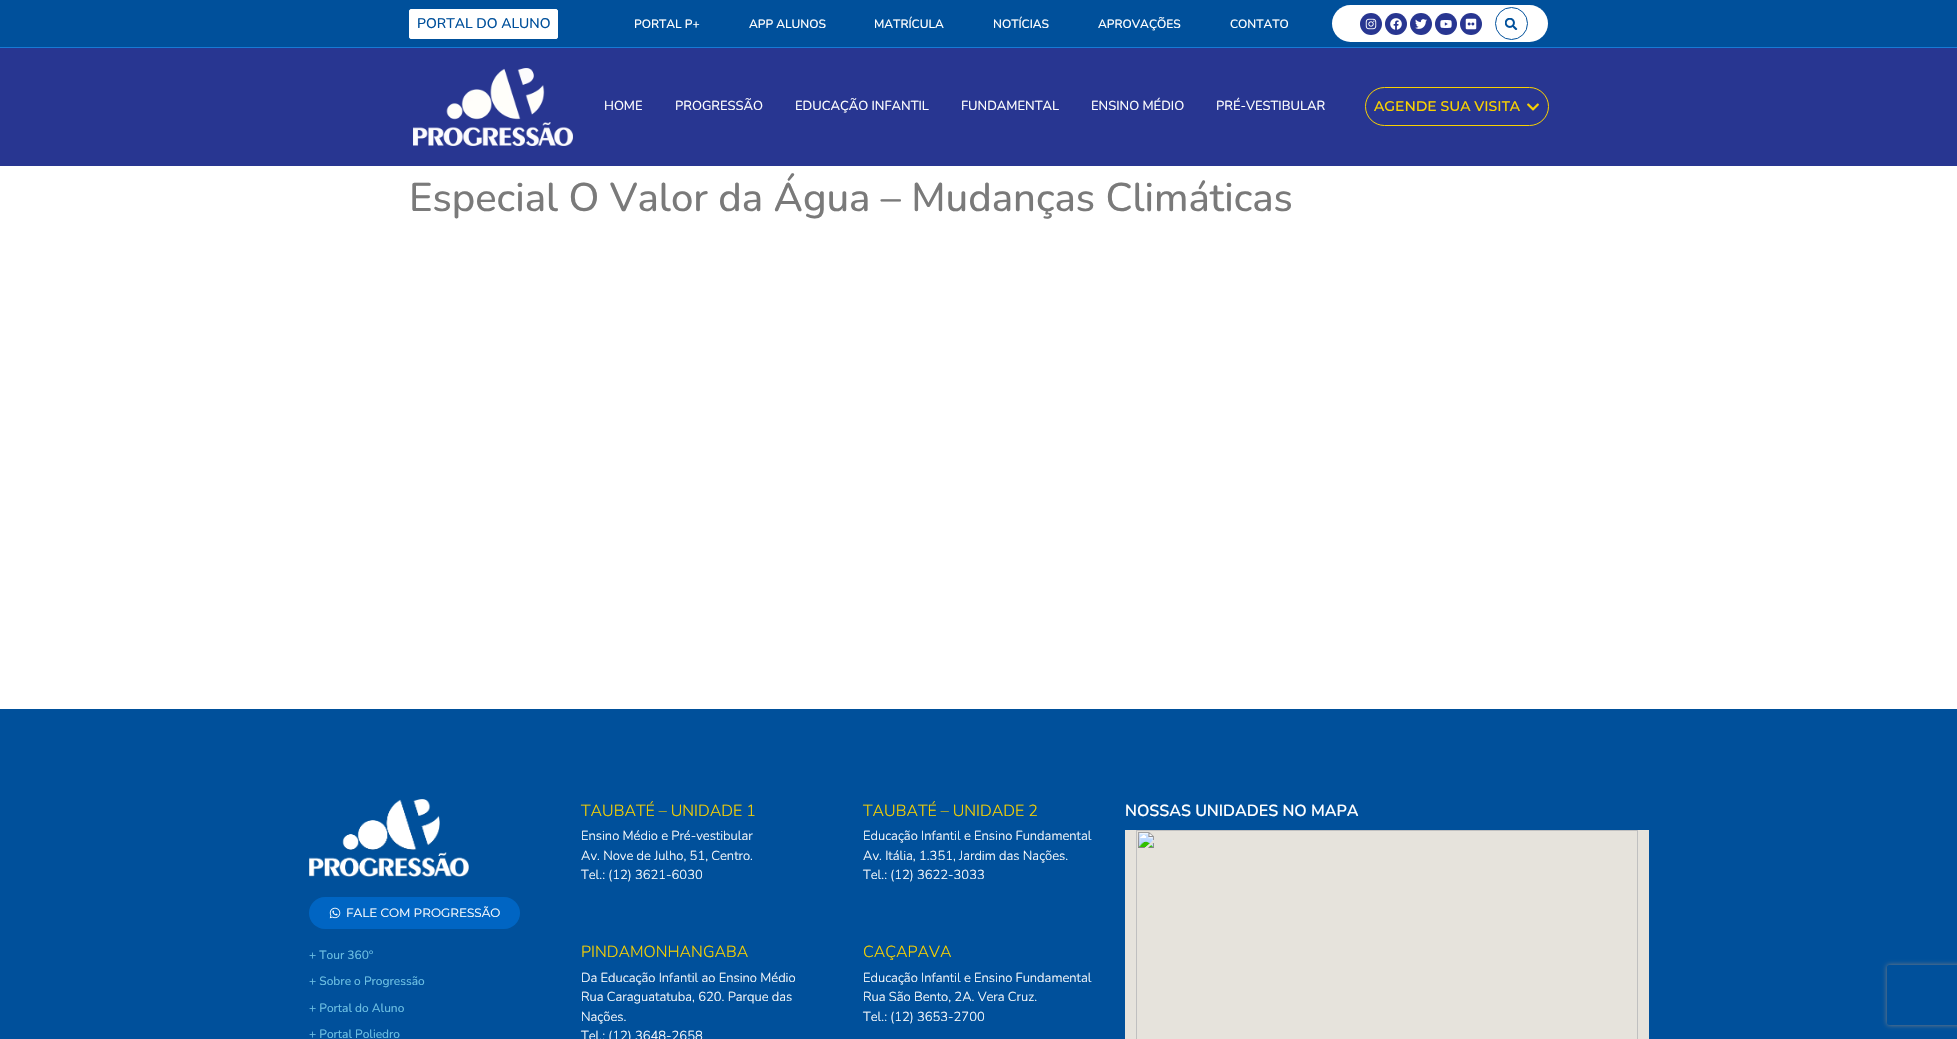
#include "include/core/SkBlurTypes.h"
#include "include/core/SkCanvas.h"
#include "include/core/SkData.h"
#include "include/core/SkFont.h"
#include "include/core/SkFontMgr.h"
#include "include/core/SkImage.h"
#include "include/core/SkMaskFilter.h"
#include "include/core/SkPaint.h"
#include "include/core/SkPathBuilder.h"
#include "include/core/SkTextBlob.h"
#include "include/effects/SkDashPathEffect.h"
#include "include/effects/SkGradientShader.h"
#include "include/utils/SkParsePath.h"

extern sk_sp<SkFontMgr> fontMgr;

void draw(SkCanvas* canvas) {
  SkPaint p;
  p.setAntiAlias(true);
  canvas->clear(SK_ColorWHITE);
  p.setColor(SkColorSetRGB(0, 80, 155));
  canvas->drawRect(SkRect::MakeLTRB(0, 0, 1957, 47), p);
  p.setColor(SkColorSetRGB(24, 122, 213));
  canvas->drawRect(SkRect::MakeLTRB(0, 47, 1957, 48), p);
  p.setColor(SK_ColorWHITE);
  canvas->drawRoundRect(SkRect::MakeLTRB(409.5f, 9.5f, 557.5f, 38.5f), 1.5f, 1.5f, p);
  p.setStyle(SkPaint::kStroke_Style);
  p.setStrokeWidth(1);
  canvas->drawRoundRect(SkRect::MakeLTRB(409.5f, 9.5f, 557.5f, 38.5f), 1.5f, 1.5f, p);
  p.setStyle(SkPaint::kFill_Style);
  canvas->drawRoundRect(SkRect::MakeLTRB(1332, 5, 1548, 42), 18.5f, 18.5f, p);
  p.setColor(SkColorSetRGB(40, 54, 145));
  canvas->drawCircle(1371, 24, 11, p);
  canvas->drawImageRect(SkImages::DeferredFromEncodedData(SkData::MakeFromFileName("images/1.png")), SkRect::MakeLTRB(1365, 18, 1377, 30), SkSamplingOptions());
  canvas->drawCircle(1396, 24, 11, p);
  canvas->drawImageRect(SkImages::DeferredFromEncodedData(SkData::MakeFromFileName("images/2.png")), SkRect::MakeLTRB(1390, 18, 1402, 30), SkSamplingOptions());
  canvas->drawCircle(1421, 24, 11, p);
  canvas->drawImageRect(SkImages::DeferredFromEncodedData(SkData::MakeFromFileName("images/3.png")), SkRect::MakeLTRB(1415, 19, 1427, 29), SkSamplingOptions());
  canvas->drawCircle(1446, 24, 11, p);
  canvas->drawImageRect(SkImages::DeferredFromEncodedData(SkData::MakeFromFileName("images/4.png")), SkRect::MakeLTRB(1440, 20, 1452, 28), SkSamplingOptions());
  canvas->drawCircle(1471, 24, 11, p);
  canvas->drawImageRect(SkImages::DeferredFromEncodedData(SkData::MakeFromFileName("images/5.png")), SkRect::MakeLTRB(1465, 18, 1477, 30), SkSamplingOptions());
  p.setStyle(SkPaint::kStroke_Style);
  p.setColor(SkColorSetRGB(0, 80, 155));
  canvas->drawCircle(1511.5f, 23.5f, 16, p);
  canvas->drawImageRect(SkImages::DeferredFromEncodedData(SkData::MakeFromFileName("images/6.png")), SkRect::MakeLTRB(1505, 18, 1518, 30), SkSamplingOptions());
  p.setStyle(SkPaint::kFill_Style);
  p.setColor(SkColorSetRGB(40, 54, 145));
  canvas->drawRect(SkRect::MakeLTRB(0, 48, 1957, 166), p);
  canvas->drawImageRect(SkImages::DeferredFromEncodedData(SkData::MakeFromFileName("images/7.png")), SkRect::MakeLTRB(413, 68, 573, 146), SkSamplingOptions());
  p.setStyle(SkPaint::kStroke_Style);
  p.setColor(SkColorSetRGB(249, 209, 0));
  canvas->drawRoundRect(SkRect::MakeLTRB(1365.5f, 87.5f, 1548.5f, 125.5f), 19, 19, p);
  canvas->drawImageRect(SkImages::DeferredFromEncodedData(SkData::MakeFromFileName("images/8.png")), SkRect::MakeLTRB(1527, 103, 1539, 111), SkSamplingOptions());
  p.setStyle(SkPaint::kFill_Style);
  p.setColor(SkColorSetRGB(0, 80, 155));
  canvas->drawRect(SkRect::MakeLTRB(0, 709, 1957, 1039), p);
  canvas->drawImageRect(SkImages::DeferredFromEncodedData(SkData::MakeFromFileName("images/9.png")), SkRect::MakeLTRB(1125, 830, 1649, 1039), SkSamplingOptions());
  canvas->drawImageRect(SkImages::DeferredFromEncodedData(SkData::MakeFromFileName("images/10.png")), SkRect::MakeLTRB(309, 799, 469, 877), SkSamplingOptions());
  p.setColor(SkColorSetRGB(0, 101, 195));
  canvas->drawRoundRect(SkRect::MakeLTRB(309, 897, 520, 929), 16, 16, p);
  canvas->drawImageRect(SkImages::DeferredFromEncodedData(SkData::MakeFromFileName("images/11.png")), SkRect::MakeLTRB(329, 907, 341, 919), SkSamplingOptions());
  canvas->save();
  canvas->clipPath(SkPathBuilder(SkPathFillType::kEvenOdd).moveTo(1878, 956).lineTo(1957, 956).lineTo(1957, 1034).lineTo(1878, 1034).close().moveTo(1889, 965).lineTo(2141, 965).cubicTo(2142, 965, 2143, 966, 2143, 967).lineTo(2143, 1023).cubicTo(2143, 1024, 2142, 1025, 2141, 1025).lineTo(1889, 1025).cubicTo(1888, 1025, 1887, 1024, 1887, 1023).lineTo(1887, 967).cubicTo(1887, 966, 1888, 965, 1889, 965).close().detach(), true);
  p.setColor(SkColorSetRGB(128, 128, 128));
  p.setMaskFilter(SkMaskFilter::MakeBlur(kNormal_SkBlurStyle, 2.5f));
  canvas->drawRoundRect(SkRect::MakeLTRB(1887, 965, 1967, 1025), 2, 2, p);
  p.setMaskFilter(nullptr);
  canvas->restore();
  SkFont font1(fontMgr->matchFamilyStyle("Nunito", SkFontStyle(500, SkFontStyle::kNormal_Width, SkFontStyle::kUpright_Slant)), 14);
  font1.setSubpixel(true);
  p.setColor(SkColorSetRGB(0, 80, 155));
  canvas->drawString("PORTAL DO ALUNO", 417, 28, font1, p);
  SkFont font2(fontMgr->matchFamilyStyle("Nunito", SkFontStyle(500, SkFontStyle::kNormal_Width, SkFontStyle::kUpright_Slant)), 12);
  font2.setSubpixel(true);
  p.setColor(SK_ColorWHITE);
  canvas->drawString("PORTAL P+", 634, 28, font2, p);
  canvas->drawString("APP ALUNOS", 749, 28, font2, p);
  canvas->drawString("MATRÍCULA", 874, 28, font2, p);
  canvas->drawString("NOTÍCIAS", 993, 28, font2, p);
  canvas->drawString("APROVAÇÕES", 1098, 28, font2, p);
  canvas->drawString("CONTATO", 1230, 28, font2, p);
  SkFont font3(fontMgr->matchFamilyStyle("Nunito", SkFontStyle::Normal()), 13);
  font3.setSubpixel(true);
  canvas->drawString("HOME", 604, 110, font3, p);
  canvas->drawString("PROGRESSÃO", 675, 110, font3, p);
  canvas->drawString("EDUCAÇÃO INFANTIL", 795, 110, font3, p);
  canvas->drawString("FUNDAMENTAL", 961, 110, font3, p);
  canvas->drawString("ENSINO MÉDIO", 1091, 110, font3, p);
  canvas->drawString("PRÉ-VESTIBULAR", 1216, 110, font3, p);
  SkFont font4(fontMgr->matchFamilyStyle("Montserrat", SkFontStyle(500, SkFontStyle::kNormal_Width, SkFontStyle::kUpright_Slant)), 14);
  font4.setSubpixel(true);
  p.setColor(SkColorSetRGB(249, 209, 0));
  canvas->drawString("AGENDE SUA VISITA", 1374, 111, font4, p);
  SkFont font5(fontMgr->matchFamilyStyle("Nunito", SkFontStyle(500, SkFontStyle::kNormal_Width, SkFontStyle::kUpright_Slant)), 40);
  font5.setSubpixel(true);
  p.setColor(SkColorSetRGB(122, 122, 122));
  canvas->drawString("Especial O Valor da Água – Mudanças Climáticas", 409, 211, font5, p);
  SkFont font6(fontMgr->matchFamilyStyle("Nunito", SkFontStyle(300, SkFontStyle::kNormal_Width, SkFontStyle::kUpright_Slant)), 16);
  font6.setSubpixel(true);
  p.setColor(SkColorSetRGB(249, 209, 0));
  canvas->drawString("TAUBATÉ – UNIDADE 1", 581, 816, font6, p);
  SkFont font7(fontMgr->matchFamilyStyle("Nunito", SkFontStyle(300, SkFontStyle::kNormal_Width, SkFontStyle::kUpright_Slant)), 13);
  font7.setSubpixel(true);
  p.setColor(SK_ColorWHITE);
  canvas->drawString("Ensino Médio e Pré-vestibular", 581, 840, font7, p);
  canvas->drawString("Av. Nove de Julho, 51, Centro.", 581, 860, font7, p);
  canvas->drawString("Tel.: (12) 3621-6030", 581, 879, font7, p);
  p.setColor(SkColorSetRGB(249, 209, 0));
  canvas->drawString("TAUBATÉ – UNIDADE 2", 863, 816, font6, p);
  p.setColor(SK_ColorWHITE);
  canvas->drawString("Educação Infantil e Ensino Fundamental", 863, 840, font7, p);
  canvas->drawString("Av. Itália, 1.351, Jardim das Nações.", 863, 860, font7, p);
  canvas->drawString("Tel.: (12) 3622-3033", 863, 879, font7, p);
  p.setColor(SkColorSetRGB(249, 209, 0));
  canvas->drawString("PINDAMONHANGABA", 581, 957, font6, p);
  p.setColor(SK_ColorWHITE);
  canvas->drawString("Da Educação Infantil ao Ensino Médio", 581, 982, font7, p);
  canvas->drawString("Rua Caraguatatuba, 620. Parque das", 581, 1001, font7, p);
  canvas->drawString("Nações.", 581, 1021, font7, p);
  canvas->drawString("Tel.: (12) 3648-2658", 581, 1040, font7, p);
  p.setColor(SkColorSetRGB(249, 209, 0));
  canvas->drawString("CAÇAPAVA", 863, 957, font6, p);
  p.setColor(SK_ColorWHITE);
  canvas->drawString("Educação Infantil e Ensino Fundamental", 863, 982, font7, p);
  canvas->drawString("Rua São Bento, 2A. Vera Cruz.", 863, 1001, font7, p);
  canvas->drawString("Tel.: (12) 3653-2700", 863, 1021, font7, p);
  SkFont font8(fontMgr->matchFamilyStyle("Nunito", SkFontStyle(600, SkFontStyle::kNormal_Width, SkFontStyle::kUpright_Slant)), 16);
  font8.setSubpixel(true);
  canvas->drawString("NOSSAS UNIDADES NO MAPA", 1125, 816, font8, p);
  SkFont font9(fontMgr->matchFamilyStyle("Montserrat", SkFontStyle::Normal()), 12);
  font9.setSubpixel(true);
  canvas->drawString("FALE COM PROGRESSÃO", 346, 917, font9, p);
  SkFont font10(fontMgr->matchFamilyStyle("Nunito", SkFontStyle::Normal()), 12);
  font10.setSubpixel(true);
  p.setColor(SkColorSetRGB(110, 193, 228));
  canvas->drawString("+ Tour 360º", 309, 959, font10, p);
  canvas->drawString("+ Sobre o Progressão", 309, 985, font10, p);
  canvas->drawString("+ Portal do Aluno", 309, 1012, font10, p);
  canvas->drawString("+ Portal Poliedro", 309, 1038, font10, p);
}
